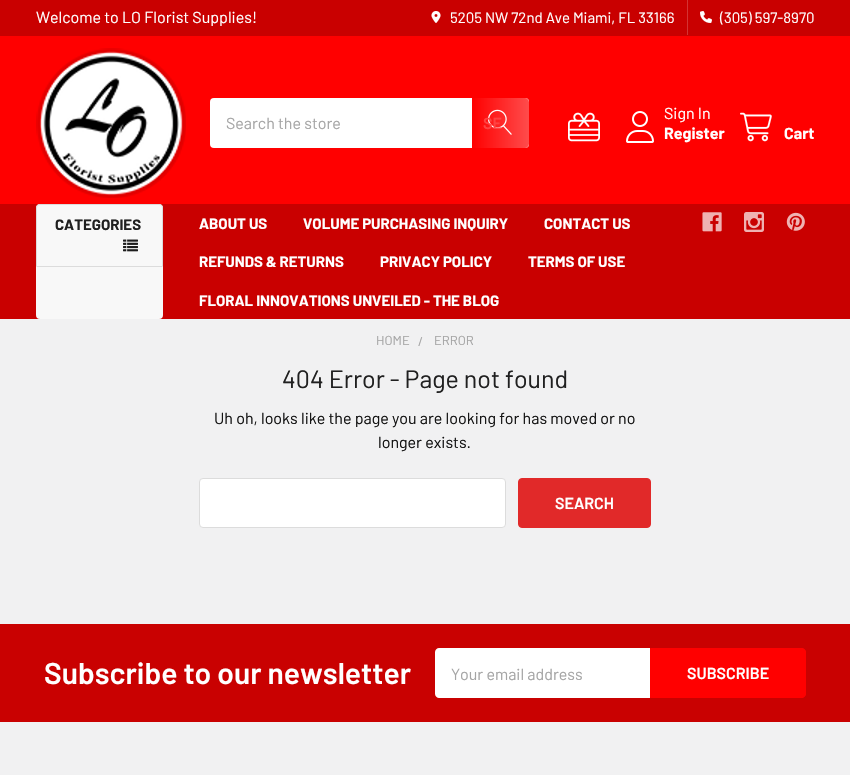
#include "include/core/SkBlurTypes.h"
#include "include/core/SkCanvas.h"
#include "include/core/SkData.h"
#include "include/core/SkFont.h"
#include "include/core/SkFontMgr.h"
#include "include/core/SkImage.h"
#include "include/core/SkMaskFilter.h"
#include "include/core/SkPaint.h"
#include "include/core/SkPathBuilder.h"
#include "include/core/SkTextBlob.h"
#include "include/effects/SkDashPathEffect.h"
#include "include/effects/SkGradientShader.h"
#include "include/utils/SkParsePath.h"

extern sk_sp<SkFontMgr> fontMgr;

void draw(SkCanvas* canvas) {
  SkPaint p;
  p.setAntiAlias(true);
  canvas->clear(SkColorSetRGB(241, 241, 242));
  p.setColor(SkColorSetRGB(255, 0, 0));
  canvas->drawRect(SkRect::MakeLTRB(0, 36, 850, 204), p);
  p.setColor(SkColorSetRGB(201, 0, 0));
  canvas->drawRect(SkRect::MakeLTRB(0, 0, 850, 36), p);
  canvas->drawImageRect(SkImages::DeferredFromEncodedData(SkData::MakeFromFileName("images/1.png")), SkRect::MakeLTRB(431, 11, 441, 23), SkSamplingOptions());
  p.setColor(SkColorSetRGB(212, 51, 51));
  canvas->drawRect(SkRect::MakeLTRB(687, 0, 688, 35), p);
  canvas->drawImageRect(SkImages::DeferredFromEncodedData(SkData::MakeFromFileName("images/2.png")), SkRect::MakeLTRB(700, 11, 712, 23), SkSamplingOptions());
  canvas->drawImageRect(SkImages::DeferredFromEncodedData(SkData::MakeFromFileName("images/3.png")), SkRect::MakeLTRB(36, 48, 186, 198), SkSamplingOptions());
  p.setColor(SK_ColorWHITE);
  canvas->drawRoundRect(SkRect::MakeLTRB(210, 98, 529, 148), 4, 4, p);
  {
    const SkColor colors[] = {SkColorSetRGB(255, 0, 0), SkColorSetARGB(179, 255, 0, 0)};
    const float stops[] = {0, 1};
    const SkPoint ends[] = {{472, 123}, {529, 123}};
    p.setShader(SkGradientShader::MakeLinear(ends, colors, stops, 2, SkTileMode::kClamp));
    p.setAlpha(255);
  }
  canvas->drawPath(SkPathBuilder().moveTo(472, 98).lineTo(525, 98).cubicTo(527, 98, 529, 100, 529, 102).lineTo(529, 144).cubicTo(529, 146, 527, 148, 525, 148).lineTo(472, 148).close().detach(), p);
  canvas->drawImageRect(SkImages::DeferredFromEncodedData(SkData::MakeFromFileName("images/4.png")), SkRect::MakeLTRB(488, 109, 512, 135), SkSamplingOptions());
  canvas->drawImageRect(SkImages::DeferredFromEncodedData(SkData::MakeFromFileName("images/5.png")), SkRect::MakeLTRB(568, 112, 600, 142), SkSamplingOptions());
  canvas->drawImageRect(SkImages::DeferredFromEncodedData(SkData::MakeFromFileName("images/6.png")), SkRect::MakeLTRB(626, 111, 654, 143), SkSamplingOptions());
  canvas->drawImageRect(SkImages::DeferredFromEncodedData(SkData::MakeFromFileName("images/7.png")), SkRect::MakeLTRB(740, 112, 772, 142), SkSamplingOptions());
  p.setShader(nullptr);
  p.setColor(SkColorSetRGB(201, 0, 0));
  canvas->drawRect(SkRect::MakeLTRB(0, 204, 850, 319), p);
  p.setColor(SkColorSetRGB(248, 248, 248));
  canvas->drawRoundRect(SkRect::MakeLTRB(36, 204, 163, 319), 4, 4, p);
  p.setStyle(SkPaint::kStroke_Style);
  p.setStrokeWidth(1);
  p.setColor(SkColorSetRGB(220, 220, 220));
  canvas->drawPath(SkPathBuilder().moveTo(40, 204.5f).lineTo(159, 204.5f).cubicTo(161, 204.5f, 162.5f, 206, 162.5f, 208).lineTo(162.5f, 266.5f).lineTo(36.5f, 266.5f).lineTo(36.5f, 208).cubicTo(36.5f, 206, 38, 204.5f, 40, 204.5f).close().detach(), p);
  canvas->drawImageRect(SkImages::DeferredFromEncodedData(SkData::MakeFromFileName("images/8.png")), SkRect::MakeLTRB(123, 239, 138, 252), SkSamplingOptions());
  canvas->drawImageRect(SkImages::DeferredFromEncodedData(SkData::MakeFromFileName("images/9.png")), SkRect::MakeLTRB(702, 212, 722, 232), SkSamplingOptions());
  canvas->drawImageRect(SkImages::DeferredFromEncodedData(SkData::MakeFromFileName("images/10.png")), SkRect::MakeLTRB(744, 212, 764, 232), SkSamplingOptions());
  canvas->drawImageRect(SkImages::DeferredFromEncodedData(SkData::MakeFromFileName("images/11.png")), SkRect::MakeLTRB(786, 212, 805, 231), SkSamplingOptions());
  p.setStyle(SkPaint::kFill_Style);
  p.setColor(SK_ColorWHITE);
  canvas->drawRoundRect(SkRect::MakeLTRB(199.5f, 478.5f, 505.5f, 527.5f), 3.5f, 3.5f, p);
  p.setStyle(SkPaint::kStroke_Style);
  p.setColor(SkColorSetRGB(220, 220, 220));
  canvas->drawRoundRect(SkRect::MakeLTRB(199.5f, 478.5f, 505.5f, 527.5f), 3.5f, 3.5f, p);
  p.setStyle(SkPaint::kFill_Style);
  p.setColor(SkColorSetRGB(225, 41, 41));
  canvas->drawRoundRect(SkRect::MakeLTRB(518.5f, 478.5f, 650.5f, 527.5f), 3.5f, 3.5f, p);
  p.setStyle(SkPaint::kStroke_Style);
  canvas->drawRoundRect(SkRect::MakeLTRB(518.5f, 478.5f, 650.5f, 527.5f), 3.5f, 3.5f, p);
  p.setStyle(SkPaint::kFill_Style);
  p.setColor(SkColorSetRGB(201, 1, 1));
  canvas->drawRect(SkRect::MakeLTRB(0, 624, 850, 722), p);
  p.setColor(SK_ColorWHITE);
  canvas->drawPath(SkPathBuilder().moveTo(439, 648).lineTo(650, 648).lineTo(650, 698).lineTo(439, 698).cubicTo(437, 698, 435, 696, 435, 694).lineTo(435, 652).cubicTo(435, 650, 437, 648, 439, 648).close().detach(), p);
  p.setColor(SkColorSetRGB(255, 0, 0));
  canvas->drawPath(SkPathBuilder().moveTo(650.5f, 648.5f).lineTo(802, 648.5f).cubicTo(804, 648.5f, 805.5f, 650, 805.5f, 652).lineTo(805.5f, 694).cubicTo(805.5f, 696, 804, 697.5f, 802, 697.5f).lineTo(650.5f, 697.5f).close().detach(), p);
  p.setStyle(SkPaint::kStroke_Style);
  canvas->drawPath(SkPathBuilder().moveTo(650.5f, 648.5f).lineTo(802, 648.5f).cubicTo(804, 648.5f, 805.5f, 650, 805.5f, 652).lineTo(805.5f, 694).cubicTo(805.5f, 696, 804, 697.5f, 802, 697.5f).lineTo(650.5f, 697.5f).close().detach(), p);
  SkFont font1(fontMgr->matchFamilyStyle("Barlow", SkFontStyle::Normal()), 16);
  font1.setSubpixel(true);
  p.setStyle(SkPaint::kFill_Style);
  p.setColor(SK_ColorWHITE);
  canvas->drawString("Welcome to LO Florist Supplies!", 36, 23, font1, p);
  SkFont font2(fontMgr->matchFamilyStyle("Barlow", SkFontStyle::Normal()), 15);
  font2.setSubpixel(true);
  canvas->drawString("5205 NW 72nd Ave Miami, FL 33166", 450, 23, font2, p);
  canvas->drawString("(305) 597-8970", 720, 23, font2, p);
  p.setColor(SkColorSetRGB(165, 165, 165));
  canvas->drawString("Search the store", 226, 129, font1, p);
  SkFont font3(fontMgr->matchFamilyStyle("Barlow", SkFontStyle(600, SkFontStyle::kNormal_Width, SkFontStyle::kUpright_Slant)), 16);
  font3.setSubpixel(true);
  p.setColor(SkColorSetRGB(255, 67, 67));
  canvas->drawString("SE", 483, 129, font3, p);
  p.setColor(SK_ColorWHITE);
  canvas->drawString("Sign In", 664, 119, font1, p);
  SkFont font4(fontMgr->matchFamilyStyle("Barlow", SkFontStyle::Bold()), 16);
  font4.setSubpixel(true);
  canvas->drawString("Register", 664, 139, font4, p);
  canvas->drawString("Cart", 784, 139, font4, p);
  SkFont font5(fontMgr->matchFamilyStyle("Barlow", SkFontStyle::Bold()), 15);
  font5.setSubpixel(true);
  p.setColor(SkColorSetRGB(32, 32, 32));
  canvas->drawString("CATEGORIES", 55, 230, font5, p);
  p.setColor(SK_ColorWHITE);
  canvas->drawString("ABOUT US", 199, 229, font5, p);
  canvas->drawString("VOLUME PURCHASING INQUIRY", 303, 229, font5, p);
  canvas->drawString("CONTACT US", 544, 229, font5, p);
  canvas->drawString("REFUNDS & RETURNS", 199, 267, font5, p);
  canvas->drawString("PRIVACY POLICY", 380, 267, font5, p);
  canvas->drawString("TERMS OF USE", 528, 267, font5, p);
  canvas->drawString("FLORAL INNOVATIONS UNVEILED - THE BLOG", 199, 306, font5, p);
  SkFont font6(fontMgr->matchFamilyStyle("Barlow", SkFontStyle::Normal()), 13);
  font6.setSubpixel(true);
  p.setColor(SkColorSetRGB(165, 165, 165));
  canvas->drawString("HOME", 376, 345, font6, p);
  canvas->drawString("/", 418, 346, font6, p);
  canvas->drawString("ERROR", 434, 345, font6, p);
  SkFont font7(fontMgr->matchFamilyStyle("Barlow", SkFontStyle::Normal()), 25);
  font7.setSubpixel(true);
  p.setColor(SkColorSetRGB(32, 32, 32));
  canvas->drawString("404 Error - Page not found", 282, 388, font7, p);
  p.setColor(SkColorSetRGB(19, 19, 19));
  canvas->drawString("Uh oh, looks like the page you are looking for has moved or no", 214, 424, font1, p);
  canvas->drawString("longer exists.", 378, 448, font1, p);
  p.setColor(SK_ColorWHITE);
  canvas->drawString("SEARCH", 555, 509, font3, p);
  SkFont font8(fontMgr->matchFamilyStyle("Barlow", SkFontStyle(600, SkFontStyle::kNormal_Width, SkFontStyle::kUpright_Slant)), 30);
  font8.setSubpixel(true);
  canvas->drawString("Subscribe to our newsletter", 44, 684, font8, p);
  p.setColor(SkColorSetRGB(165, 165, 165));
  canvas->drawString("Your email address", 451, 680, font1, p);
  p.setColor(SK_ColorWHITE);
  canvas->drawString("SUBSCRIBE", 687, 679, font3, p);
}
